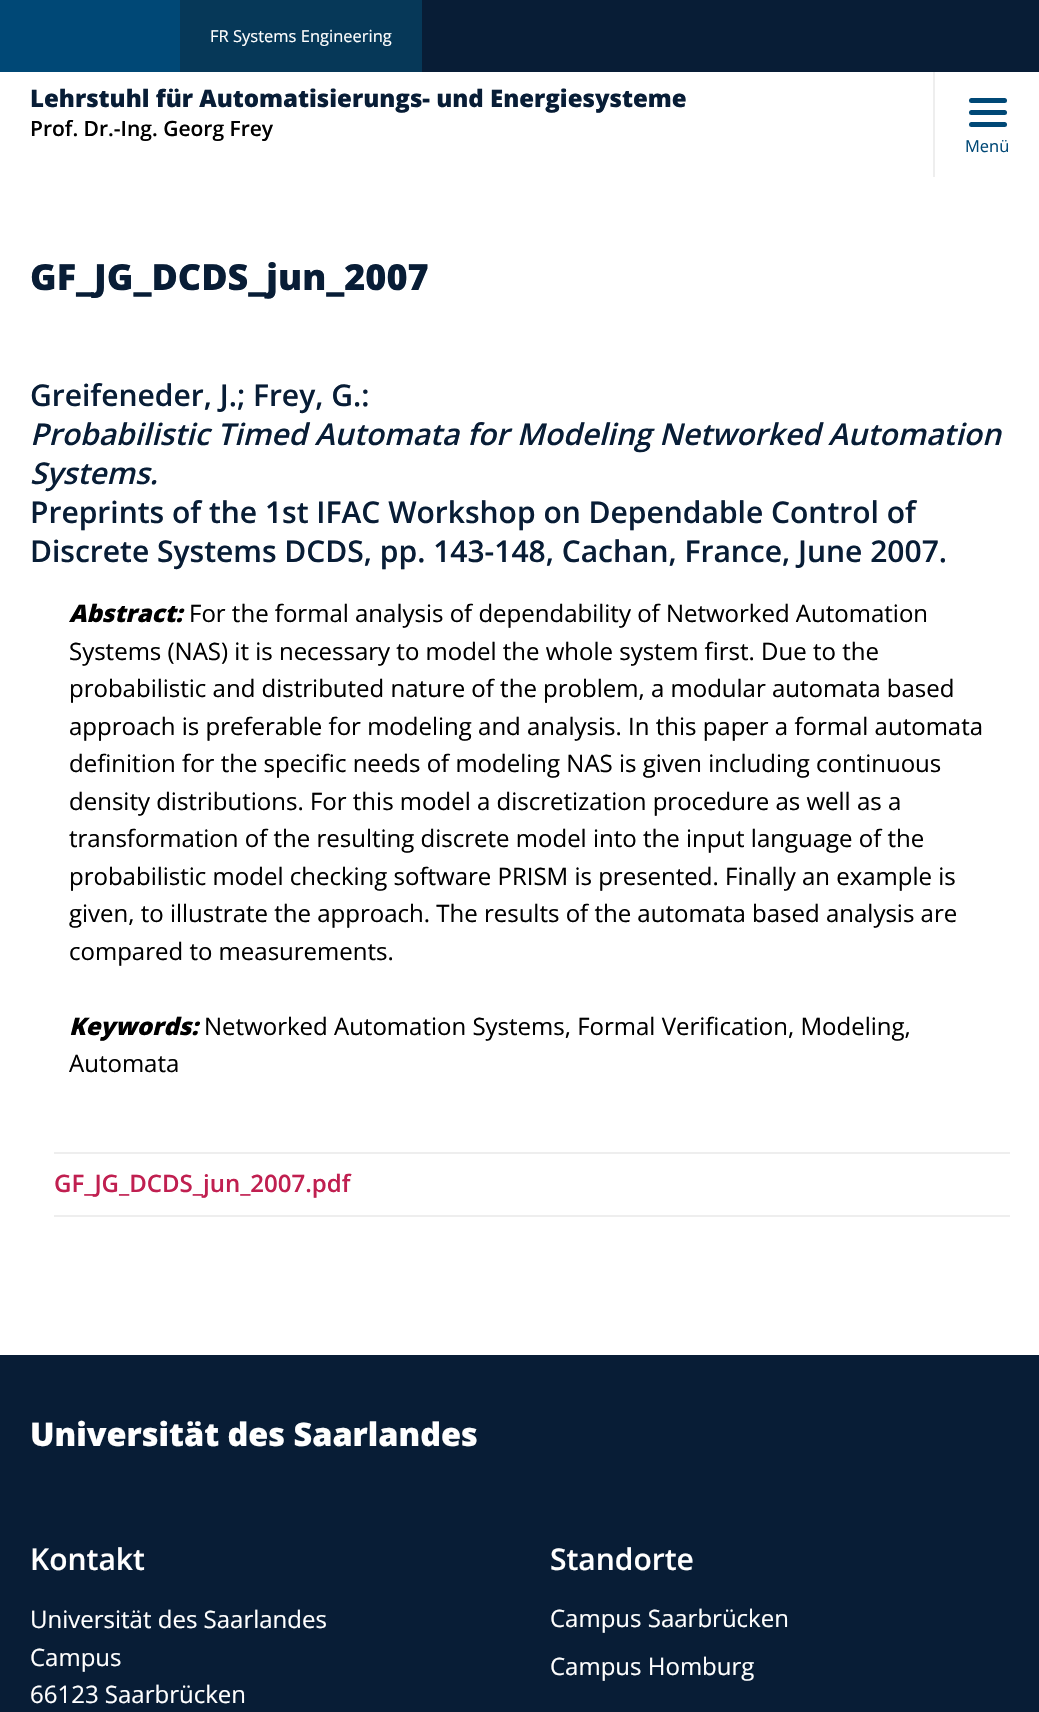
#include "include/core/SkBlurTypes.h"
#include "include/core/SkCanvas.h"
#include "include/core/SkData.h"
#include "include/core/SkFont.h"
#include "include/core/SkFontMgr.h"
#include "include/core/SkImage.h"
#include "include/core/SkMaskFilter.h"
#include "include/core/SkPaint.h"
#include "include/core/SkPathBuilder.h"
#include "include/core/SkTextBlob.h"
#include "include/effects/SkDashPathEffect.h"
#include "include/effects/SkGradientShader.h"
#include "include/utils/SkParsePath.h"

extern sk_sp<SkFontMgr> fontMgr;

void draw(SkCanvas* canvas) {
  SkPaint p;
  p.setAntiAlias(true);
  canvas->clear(SK_ColorWHITE);
  p.setColor(SkColorSetRGB(8, 29, 54));
  canvas->drawRect(SkRect::MakeLTRB(422, 0, 1039, 72), p);
  p.setColor(SkColorSetRGB(0, 72, 118));
  canvas->drawRect(SkRect::MakeLTRB(0, 0, 180, 72), p);
  p.setColor(SkColorSetRGB(6, 56, 88));
  canvas->drawRect(SkRect::MakeLTRB(180, 0, 422, 72), p);
  p.setColor(SkColorSetRGB(238, 238, 238));
  canvas->drawRect(SkRect::MakeLTRB(933, 72, 935, 177), p);
  p.setColor(SkColorSetRGB(0, 72, 118));
  canvas->drawRoundRect(SkRect::MakeLTRB(969, 98, 1007, 103), 2.5f, 2.5f, p);
  canvas->drawRoundRect(SkRect::MakeLTRB(969, 110, 1007, 115), 2.5f, 2.5f, p);
  canvas->drawRoundRect(SkRect::MakeLTRB(969, 122, 1007, 127), 2.5f, 2.5f, p);
  p.setColor(SkColorSetRGB(238, 238, 238));
  canvas->drawRect(SkRect::MakeLTRB(54, 1152, 1010, 1154), p);
  canvas->drawRect(SkRect::MakeLTRB(54, 1215, 1010, 1217), p);
  p.setColor(SkColorSetRGB(8, 29, 54));
  canvas->drawRect(SkRect::MakeLTRB(0, 1355, 1039, 1712), p);
  SkFont font1(fontMgr->matchFamilyStyle("Open Sans", SkFontStyle::Normal()), 16.5f);
  font1.setSubpixel(true);
  p.setColor(SK_ColorWHITE);
  canvas->drawString("FR Systems Engineering", 210, 42, font1, p);
  SkFont font2(fontMgr->matchFamilyStyle("Open Sans", SkFontStyle(800, SkFontStyle::kNormal_Width, SkFontStyle::kUpright_Slant)), 24);
  font2.setSubpixel(true);
  p.setColor(SkColorSetRGB(8, 29, 54));
  canvas->drawString("Lehrstuhl für Automatisierungs- und Energiesysteme", 30, 107, font2, p);
  SkFont font3(fontMgr->matchFamilyStyle("Open Sans", SkFontStyle(600, SkFontStyle::kNormal_Width, SkFontStyle::kUpright_Slant)), 21);
  font3.setSubpixel(true);
  p.setColor(SK_ColorBLACK);
  canvas->drawString("Prof. Dr.-Ing. Georg Frey", 30, 136, font3, p);
  p.setColor(SkColorSetRGB(0, 72, 118));
  canvas->drawString("Menü", 965, 152, font1, p);
  SkFont font4(fontMgr->matchFamilyStyle("Open Sans", SkFontStyle(800, SkFontStyle::kNormal_Width, SkFontStyle::kUpright_Slant)), 36);
  font4.setSubpixel(true);
  p.setColor(SkColorSetRGB(8, 29, 54));
  canvas->drawString("GF_JG_DCDS_jun_2007", 30, 290, font4, p);
  SkFont font5(fontMgr->matchFamilyStyle("Open Sans", SkFontStyle(600, SkFontStyle::kNormal_Width, SkFontStyle::kUpright_Slant)), 30);
  font5.setSubpixel(true);
  canvas->drawString("Greifeneder, J.; Frey, G.:", 30, 406, font5, p);
  SkFont font6(fontMgr->matchFamilyStyle("Open Sans", SkFontStyle(600, SkFontStyle::kNormal_Width, SkFontStyle::kItalic_Slant)), 30);
  font6.setSubpixel(true);
  canvas->drawString("Probabilistic Timed Automata for Modeling Networked Automation", 30, 445, font6, p);
  canvas->drawString("Systems.", 30, 484, font6, p);
  canvas->drawString("Preprints of the 1st IFAC Workshop on Dependable Control of", 30, 523, font5, p);
  canvas->drawString("Discrete Systems DCDS, pp. 143-148, Cachan, France, June 2007.", 30, 562, font5, p);
  SkFont font7(fontMgr->matchFamilyStyle("Open Sans", SkFontStyle(800, SkFontStyle::kNormal_Width, SkFontStyle::kItalic_Slant)), 24);
  font7.setSubpixel(true);
  p.setColor(SK_ColorBLACK);
  canvas->drawString("Abstract:", 69, 622, font7, p);
  SkFont font8(fontMgr->matchFamilyStyle("Open Sans", SkFontStyle::Normal()), 24);
  font8.setSubpixel(true);
  canvas->drawString("For the formal analysis of dependability of Networked Automation", 189, 622, font8, p);
  canvas->drawString("Systems (NAS) it is necessary to model the whole system first. Due to the", 69, 660, font8, p);
  canvas->drawString("probabilistic and distributed nature of the problem, a modular automata based", 69, 697, font8, p);
  canvas->drawString("approach is preferable for modeling and analysis. In this paper a formal automata", 69, 735, font8, p);
  canvas->drawString("definition for the specific needs of modeling NAS is given including continuous", 69, 772, font8, p);
  canvas->drawString("density distributions. For this model a discretization procedure as well as a", 69, 810, font8, p);
  canvas->drawString("transformation of the resulting discrete model into the input language of the", 69, 847, font8, p);
  canvas->drawString("probabilistic model checking software PRISM is presented. Finally an example is", 69, 885, font8, p);
  canvas->drawString("given, to illustrate the approach. The results of the automata based analysis are", 69, 922, font8, p);
  canvas->drawString("compared to measurements.", 69, 960, font8, p);
  canvas->drawString("Keywords:", 69, 1035, font7, p);
  canvas->drawString("Networked Automation Systems, Formal Verification, Modeling,", 204, 1035, font8, p);
  canvas->drawString("Automata", 69, 1072, font8, p);
  SkFont font9(fontMgr->matchFamilyStyle("Open Sans", SkFontStyle(600, SkFontStyle::kNormal_Width, SkFontStyle::kUpright_Slant)), 24);
  font9.setSubpixel(true);
  p.setColor(SkColorSetRGB(192, 31, 80));
  canvas->drawString("GF_JG_DCDS_jun_2007.pdf", 54, 1192, font9, p);
  SkFont font10(fontMgr->matchFamilyStyle("Open Sans", SkFontStyle(800, SkFontStyle::kNormal_Width, SkFontStyle::kUpright_Slant)), 32.4f);
  font10.setSubpixel(true);
  p.setColor(SK_ColorWHITE);
  canvas->drawString("Universität des Saarlandes", 30, 1446, font10, p);
  canvas->drawString("Kontakt", 30, 1570, font5, p);
  canvas->drawString("Universität des Saarlandes", 30, 1628, font8, p);
  canvas->drawString("Campus", 30, 1666, font8, p);
  canvas->drawString("66123 Saarbrücken", 30, 1703, font8, p);
  canvas->drawString("Standorte", 550, 1570, font5, p);
  canvas->drawString("Campus Saarbrücken", 550, 1627, font8, p);
  canvas->drawString("Campus Homburg", 550, 1675, font8, p);
}
